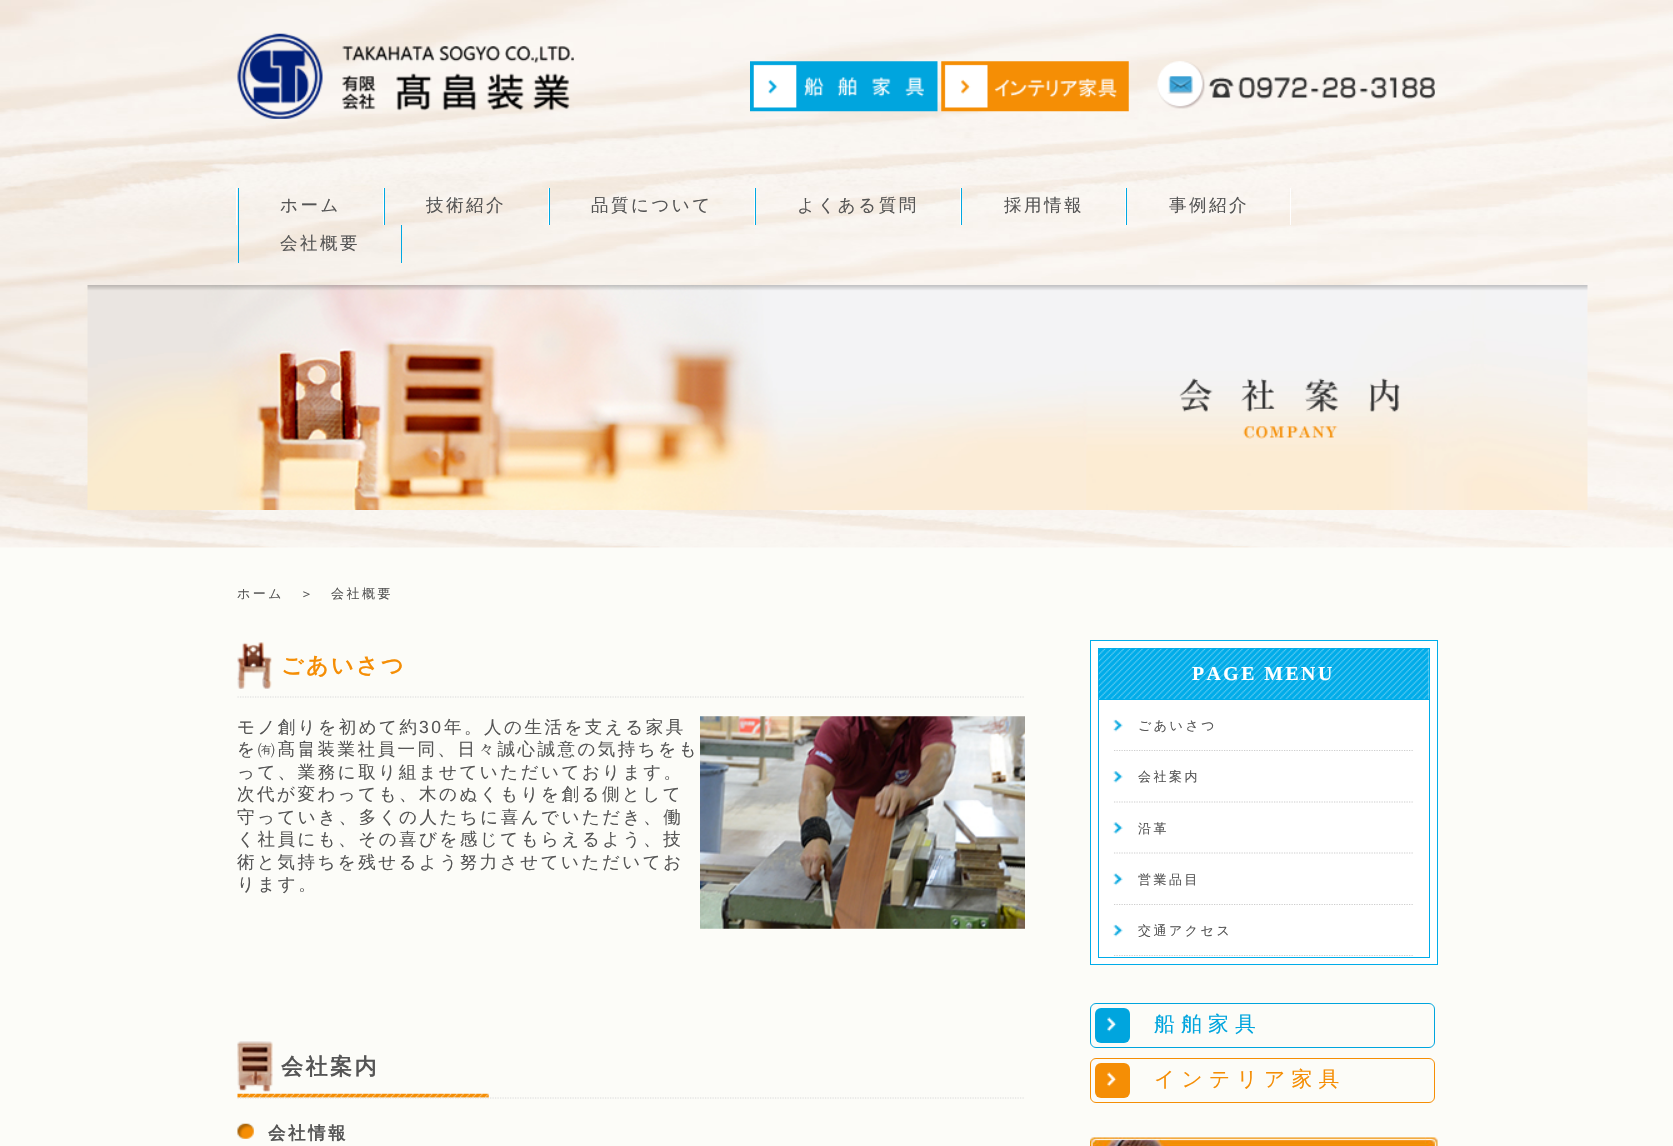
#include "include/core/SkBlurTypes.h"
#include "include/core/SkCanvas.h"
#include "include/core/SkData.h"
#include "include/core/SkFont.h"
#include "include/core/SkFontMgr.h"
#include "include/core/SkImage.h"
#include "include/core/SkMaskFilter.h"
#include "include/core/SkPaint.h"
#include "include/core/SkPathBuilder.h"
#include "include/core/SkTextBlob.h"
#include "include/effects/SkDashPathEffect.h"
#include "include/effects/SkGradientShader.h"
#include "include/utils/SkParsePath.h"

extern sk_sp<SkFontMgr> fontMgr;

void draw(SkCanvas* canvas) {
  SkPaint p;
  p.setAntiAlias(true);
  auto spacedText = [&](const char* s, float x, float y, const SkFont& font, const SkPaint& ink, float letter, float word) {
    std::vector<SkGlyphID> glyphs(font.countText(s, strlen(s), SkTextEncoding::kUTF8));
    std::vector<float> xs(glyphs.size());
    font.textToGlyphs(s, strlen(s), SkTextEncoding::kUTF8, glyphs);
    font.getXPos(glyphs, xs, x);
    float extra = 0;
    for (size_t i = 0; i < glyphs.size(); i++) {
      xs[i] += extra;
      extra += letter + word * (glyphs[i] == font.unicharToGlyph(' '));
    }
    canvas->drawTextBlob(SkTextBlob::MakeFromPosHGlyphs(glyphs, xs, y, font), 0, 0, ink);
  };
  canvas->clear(SkColorSetRGB(252, 252, 248));
  canvas->drawImageRect(SkImages::DeferredFromEncodedData(SkData::MakeFromFileName("images/1.png")), SkRect::MakeLTRB(0, 0, 1673, 548), SkSamplingOptions());
  canvas->drawImageRect(SkImages::DeferredFromEncodedData(SkData::MakeFromFileName("images/2.png")), SkRect::MakeLTRB(237, 33, 574, 119), SkSamplingOptions());
  canvas->drawImageRect(SkImages::DeferredFromEncodedData(SkData::MakeFromFileName("images/3.png")), SkRect::MakeLTRB(750, 61, 938, 112), SkSamplingOptions());
  canvas->drawImageRect(SkImages::DeferredFromEncodedData(SkData::MakeFromFileName("images/4.png")), SkRect::MakeLTRB(941, 61, 1129, 112), SkSamplingOptions());
  canvas->drawImageRect(SkImages::DeferredFromEncodedData(SkData::MakeFromFileName("images/5.png")), SkRect::MakeLTRB(1157, 61, 1205, 109), SkSamplingOptions());
  canvas->drawImageRect(SkImages::DeferredFromEncodedData(SkData::MakeFromFileName("images/6.png")), SkRect::MakeLTRB(1208, 77, 1435, 99), SkSamplingOptions());
  p.setColor(SK_ColorWHITE);
  canvas->drawRect(SkRect::MakeLTRB(236, 188, 237, 225), p);
  canvas->drawRect(SkRect::MakeLTRB(383, 188, 384, 225), p);
  p.setColor(SkColorSetRGB(0, 168, 226));
  canvas->drawRect(SkRect::MakeLTRB(238, 188, 239, 263), p);
  p.setColor(SK_ColorWHITE);
  canvas->drawRect(SkRect::MakeLTRB(548, 188, 549, 225), p);
  p.setColor(SkColorSetRGB(0, 168, 226));
  canvas->drawRect(SkRect::MakeLTRB(384, 188, 385, 225), p);
  p.setColor(SK_ColorWHITE);
  canvas->drawRect(SkRect::MakeLTRB(754, 188, 755, 225), p);
  p.setColor(SkColorSetRGB(0, 168, 226));
  canvas->drawRect(SkRect::MakeLTRB(549, 188, 550, 225), p);
  p.setColor(SK_ColorWHITE);
  canvas->drawRect(SkRect::MakeLTRB(960, 188, 961, 225), p);
  p.setColor(SkColorSetRGB(0, 168, 226));
  canvas->drawRect(SkRect::MakeLTRB(755, 188, 756, 225), p);
  p.setColor(SK_ColorWHITE);
  canvas->drawRect(SkRect::MakeLTRB(1125, 188, 1126, 225), p);
  p.setColor(SkColorSetRGB(0, 168, 226));
  canvas->drawRect(SkRect::MakeLTRB(961, 188, 962, 225), p);
  p.setColor(SK_ColorWHITE);
  canvas->drawRect(SkRect::MakeLTRB(1290, 188, 1291, 225), p);
  p.setColor(SkColorSetRGB(0, 168, 226));
  canvas->drawRect(SkRect::MakeLTRB(1126, 188, 1127, 225), p);
  canvas->drawRect(SkRect::MakeLTRB(401, 225, 402, 263), p);
  canvas->drawImageRect(SkImages::DeferredFromEncodedData(SkData::MakeFromFileName("images/7.png")), SkRect::MakeLTRB(87, 285, 1588, 510), SkSamplingOptions());
  canvas->drawImageRect(SkImages::DeferredFromEncodedData(SkData::MakeFromFileName("images/8.png")), SkRect::MakeLTRB(1179, 378, 1400, 439), SkSamplingOptions());
  canvas->drawImageRect(SkImages::DeferredFromEncodedData(SkData::MakeFromFileName("images/9.png")), SkRect::MakeLTRB(237, 642, 272, 689), SkSamplingOptions());
  p.setStyle(SkPaint::kStroke_Style);
  p.setStrokeWidth(1.2f);
  p.setColor(SkColorSetRGB(219, 219, 219));
  p.setPathEffect(SkDashPathEffect::Make({{1.25f, 1.25f}}, 0));
  canvas->drawPath(SkPathBuilder().moveTo(237.5f, 697).lineTo(1025, 697).detach(), p);
  p.setPathEffect(nullptr);
  canvas->drawImageRect(SkImages::DeferredFromEncodedData(SkData::MakeFromFileName("images/10.png")), SkRect::MakeLTRB(700, 716, 1025, 929), SkSamplingOptions());
  canvas->drawImageRect(SkImages::DeferredFromEncodedData(SkData::MakeFromFileName("images/11.png")), SkRect::MakeLTRB(237, 1041, 489, 1098), SkSamplingOptions());
  p.setPathEffect(SkDashPathEffect::Make({{1.25f, 1.25f}}, 0));
  canvas->drawPath(SkPathBuilder().moveTo(237.5f, 1098).lineTo(1025, 1098).detach(), p);
  p.setPathEffect(nullptr);
  canvas->drawImageRect(SkImages::DeferredFromEncodedData(SkData::MakeFromFileName("images/12.png")), SkRect::MakeLTRB(237, 1123, 254, 1139), SkSamplingOptions());
  p.setStyle(SkPaint::kFill_Style);
  p.setColor(SK_ColorWHITE);
  canvas->drawRect(SkRect::MakeLTRB(1090.5f, 640.5f, 1437.5f, 964.5f), p);
  p.setStyle(SkPaint::kStroke_Style);
  p.setStrokeWidth(1);
  p.setColor(SkColorSetRGB(0, 172, 233));
  canvas->drawRect(SkRect::MakeLTRB(1090.5f, 640.5f, 1437.5f, 964.5f), p);
  canvas->drawRect(SkRect::MakeLTRB(1098.5f, 648.5f, 1429.5f, 957.5f), p);
  canvas->drawImageRect(SkImages::DeferredFromEncodedData(SkData::MakeFromFileName("images/13.png")), SkRect::MakeLTRB(1098, 648, 1429, 700), SkSamplingOptions());
  p.setStyle(SkPaint::kFill_Style);
  canvas->drawRect(SkRect::MakeLTRB(1099, 699, 1429, 700), p);
  p.setStyle(SkPaint::kStroke_Style);
  p.setStrokeWidth(1.2f);
  p.setColor(SkColorSetRGB(206, 206, 206));
  p.setPathEffect(SkDashPathEffect::Make({{1.25f, 1.25f}}, 0));
  canvas->drawPath(SkPathBuilder().moveTo(1114, 750.5f).lineTo(1414, 750.5f).detach(), p);
  p.setPathEffect(nullptr);
  canvas->drawImageRect(SkImages::DeferredFromEncodedData(SkData::MakeFromFileName("images/14.png")), SkRect::MakeLTRB(1113, 719, 1123, 732), SkSamplingOptions());
  p.setPathEffect(SkDashPathEffect::Make({{1.25f, 1.25f}}, 0));
  canvas->drawPath(SkPathBuilder().moveTo(1114, 802).lineTo(1414, 802).detach(), p);
  p.setPathEffect(nullptr);
  canvas->drawImageRect(SkImages::DeferredFromEncodedData(SkData::MakeFromFileName("images/15.png")), SkRect::MakeLTRB(1113, 771, 1123, 783), SkSamplingOptions());
  p.setPathEffect(SkDashPathEffect::Make({{1.25f, 1.25f}}, 0));
  canvas->drawPath(SkPathBuilder().moveTo(1114, 853).lineTo(1414, 853).detach(), p);
  p.setPathEffect(nullptr);
  canvas->drawImageRect(SkImages::DeferredFromEncodedData(SkData::MakeFromFileName("images/16.png")), SkRect::MakeLTRB(1113, 822, 1123, 834), SkSamplingOptions());
  p.setPathEffect(SkDashPathEffect::Make({{1.25f, 1.25f}}, 0));
  canvas->drawPath(SkPathBuilder().moveTo(1114, 904.5f).lineTo(1414, 904.5f).detach(), p);
  p.setPathEffect(nullptr);
  canvas->drawImageRect(SkImages::DeferredFromEncodedData(SkData::MakeFromFileName("images/17.png")), SkRect::MakeLTRB(1113, 873, 1123, 886), SkSamplingOptions());
  p.setPathEffect(SkDashPathEffect::Make({{1.25f, 1.25f}}, 0));
  canvas->drawPath(SkPathBuilder().moveTo(1114, 955.5f).lineTo(1414, 955.5f).detach(), p);
  p.setPathEffect(nullptr);
  canvas->drawImageRect(SkImages::DeferredFromEncodedData(SkData::MakeFromFileName("images/14.png")), SkRect::MakeLTRB(1113, 924, 1123, 937), SkSamplingOptions());
  p.setStrokeWidth(1);
  p.setColor(SkColorSetRGB(0, 165, 222));
  canvas->drawRoundRect(SkRect::MakeLTRB(1090.5f, 1003.5f, 1434.5f, 1047.5f), 5.5f, 5.5f, p);
  p.setStyle(SkPaint::kFill_Style);
  canvas->drawRoundRect(SkRect::MakeLTRB(1095, 1008, 1130, 1043), 6, 6, p);
  canvas->drawImageRect(SkImages::DeferredFromEncodedData(SkData::MakeFromFileName("images/18.png")), SkRect::MakeLTRB(1107, 1017, 1117, 1032), SkSamplingOptions());
  p.setStyle(SkPaint::kStroke_Style);
  p.setColor(SkColorSetRGB(245, 142, 5));
  canvas->drawRoundRect(SkRect::MakeLTRB(1090.5f, 1058.5f, 1434.5f, 1102.5f), 5.5f, 5.5f, p);
  p.setStyle(SkPaint::kFill_Style);
  canvas->drawRoundRect(SkRect::MakeLTRB(1095, 1063, 1130, 1098), 6, 6, p);
  canvas->drawImageRect(SkImages::DeferredFromEncodedData(SkData::MakeFromFileName("images/19.png")), SkRect::MakeLTRB(1107, 1072, 1117, 1087), SkSamplingOptions());
  canvas->drawImageRect(SkImages::DeferredFromEncodedData(SkData::MakeFromFileName("images/20.png")), SkRect::MakeLTRB(1090, 1137, 1438, 1146), SkSamplingOptions());
  SkFont font1(fontMgr->matchFamilyStyle("WenQuanYi Zen Hei", SkFontStyle(500, SkFontStyle::kNormal_Width, SkFontStyle::kUpright_Slant)), 17.5f);
  font1.setSubpixel(true);
  p.setColor(SkColorSetRGB(85, 85, 85));
  spacedText("ホーム", 280, 211, font1, p, 2.5f, 0);
  spacedText("技術紹介", 426, 211, font1, p, 2.5f, 0);
  spacedText("品質について", 591, 211, font1, p, 2.5f, 0);
  spacedText("よくある質問", 797, 211, font1, p, 2.5f, 0);
  spacedText("採用情報", 1004, 211, font1, p, 2.5f, 0);
  spacedText("事例紹介", 1169, 211, font1, p, 2.5f, 0);
  spacedText("会社概要", 280, 249, font1, p, 2.5f, 0);
  SkFont font2(fontMgr->matchFamilyStyle("WenQuanYi Zen Hei", SkFontStyle(500, SkFontStyle::kNormal_Width, SkFontStyle::kUpright_Slant)), 13);
  font2.setSubpixel(true);
  spacedText("ホーム", 237, 598, font2, p, 2.5f, 0);
  spacedText("＞", 300, 598, font2, p, 2.5f, 0);
  spacedText("会社概要", 331, 598, font2, p, 2.5f, 0);
  SkFont font3(fontMgr->matchFamilyStyle("WenQuanYi Zen Hei", SkFontStyle::Bold()), 22);
  font3.setSubpixel(true);
  p.setColor(SkColorSetRGB(245, 142, 5));
  spacedText("ごあいさつ", 281, 673, font3, p, 2.5f, 0);
  p.setColor(SkColorSetRGB(85, 85, 85));
  spacedText("モノ創りを初めて約", 237, 733, font1, p, 2.5f, 0);
  SkFont font4(fontMgr->matchFamilyStyle("Liberation Sans", SkFontStyle::Normal()), 17.5f);
  font4.setSubpixel(true);
  spacedText("30", 419, 733, font4, p, 2.5f, 0);
  spacedText("年。人の生活を支える家具", 444, 733, font1, p, 2.5f, 0);
  spacedText("を㈲髙畠装業社員一同、日々誠心誠意の気持ちをも", 237, 755, font1, p, 2.5f, 0);
  spacedText("って、業務に取り組ませていただいております。", 237, 778, font1, p, 2.5f, 0);
  spacedText("次代が変わっても、木のぬくもりを創る側として", 237, 800, font1, p, 2.5f, 0);
  spacedText("守っていき、多くの人たちに喜んでいただき、働", 237, 823, font1, p, 2.5f, 0);
  spacedText("く社員にも、その喜びを感じてもらえるよう、技", 237, 845, font1, p, 2.5f, 0);
  spacedText("術と気持ちを残せるよう努力させていただいてお", 237, 868, font1, p, 2.5f, 0);
  spacedText("ります。", 237, 890, font1, p, 2.5f, 0);
  spacedText("会社案内", 281, 1074, font3, p, 2.5f, 0);
  SkFont font5(fontMgr->matchFamilyStyle("WenQuanYi Zen Hei", SkFontStyle::Bold()), 17.5f);
  font5.setSubpixel(true);
  spacedText("会社情報", 268, 1139, font5, p, 2.5f, 0);
  SkFont font6(fontMgr->matchFamilyStyle("Liberation Serif", SkFontStyle::Bold()), 19.75f);
  font6.setSubpixel(true);
  p.setColor(SK_ColorWHITE);
  spacedText("PAGE MENU", 1192, 680, font6, p, 2.5f, 0);
  p.setColor(SkColorSetRGB(85, 85, 85));
  spacedText("ごあいさつ", 1138, 730, font2, p, 2.5f, 0);
  spacedText("会社案内", 1138, 781, font2, p, 2.5f, 0);
  spacedText("沿革", 1138, 833, font2, p, 2.5f, 0);
  spacedText("営業品目", 1138, 884, font2, p, 2.5f, 0);
  spacedText("交通アクセス", 1138, 935, font2, p, 2.5f, 0);
  SkFont font7(fontMgr->matchFamilyStyle("WenQuanYi Zen Hei", SkFontStyle(500, SkFontStyle::kNormal_Width, SkFontStyle::kUpright_Slant)), 20.75f);
  font7.setSubpixel(true);
  p.setColor(SkColorSetRGB(0, 165, 222));
  spacedText("船舶家具", 1154, 1031, font7, p, 6.25f, 0);
  p.setColor(SkColorSetRGB(245, 142, 5));
  spacedText("インテリア家具", 1154, 1086, font7, p, 6.25f, 0);
}
